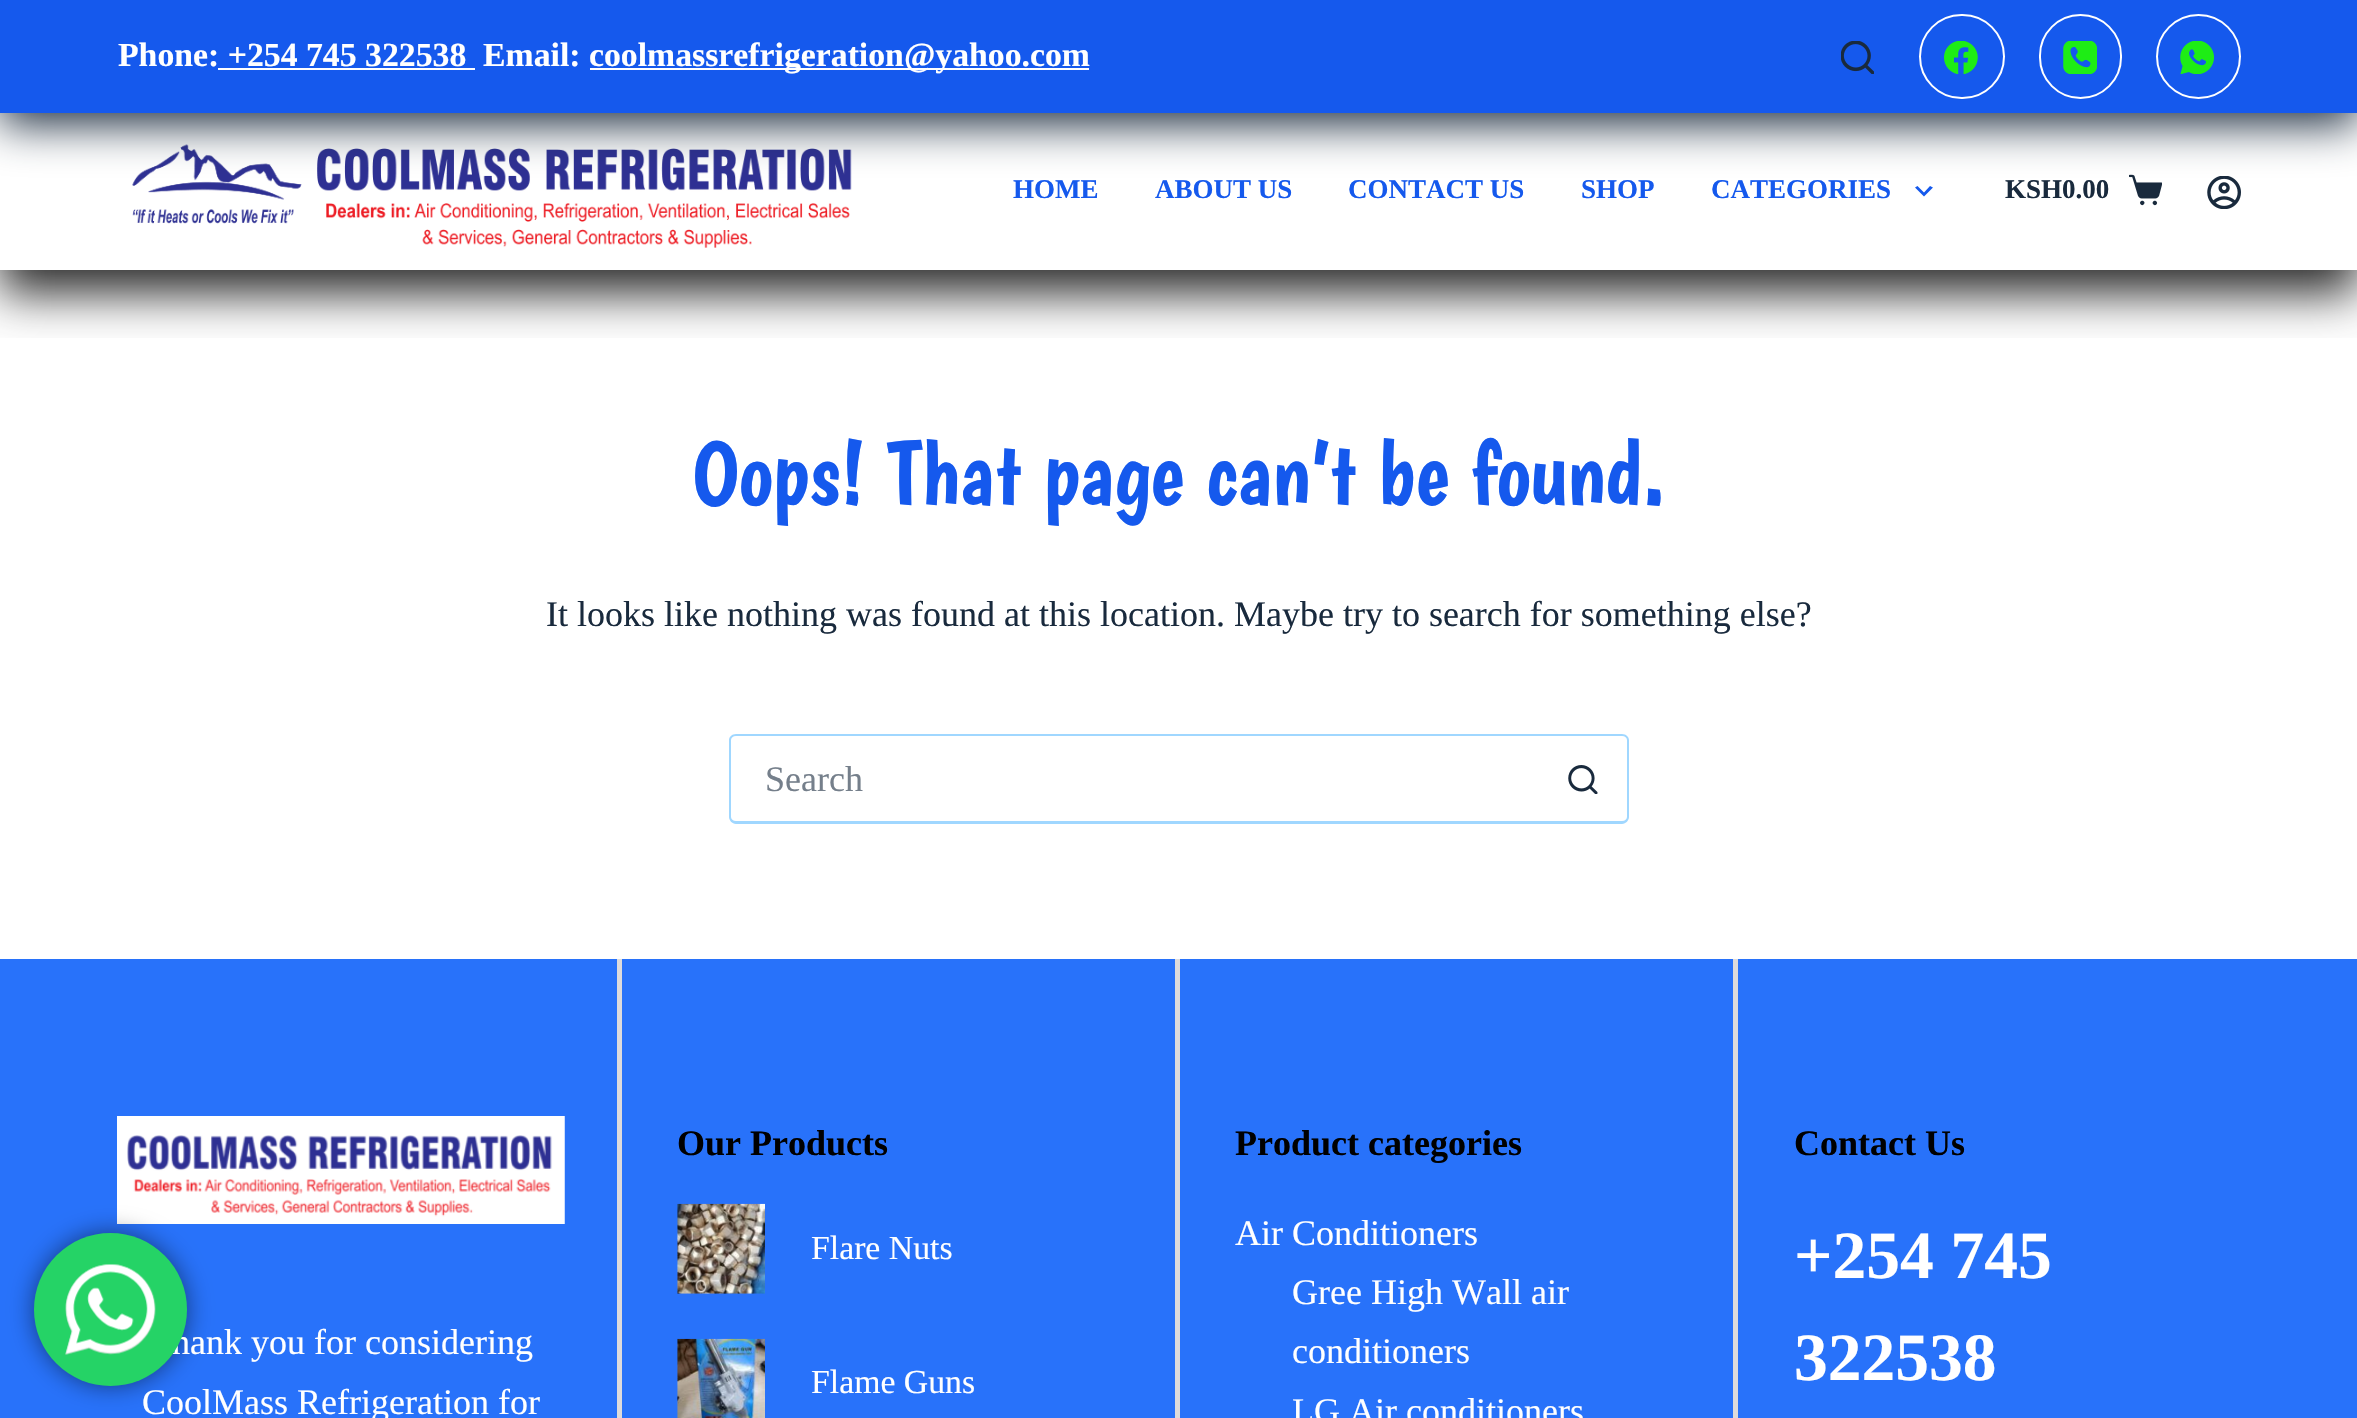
#include "include/core/SkBlurTypes.h"
#include "include/core/SkCanvas.h"
#include "include/core/SkData.h"
#include "include/core/SkFont.h"
#include "include/core/SkFontMgr.h"
#include "include/core/SkImage.h"
#include "include/core/SkMaskFilter.h"
#include "include/core/SkPaint.h"
#include "include/core/SkPathBuilder.h"
#include "include/core/SkTextBlob.h"
#include "include/effects/SkDashPathEffect.h"
#include "include/effects/SkGradientShader.h"
#include "include/utils/SkParsePath.h"

extern sk_sp<SkFontMgr> fontMgr;

void draw(SkCanvas* canvas) {
  SkPaint p;
  p.setAntiAlias(true);
  canvas->clear(SK_ColorWHITE);
  p.setColor(SkColorSetRGB(40, 114, 250));
  canvas->drawRect(SkRect::MakeLTRB(0, 959, 2357, 1418), p);
  canvas->drawImageRect(SkImages::DeferredFromEncodedData(SkData::MakeFromFileName("images/10.png")), SkRect::MakeLTRB(117, 1116, 565, 1224), SkSamplingOptions());
  p.setColor(SkColorSetARGB(128, 0, 0, 0));
  p.setMaskFilter(SkMaskFilter::MakeBlur(kNormal_SkBlurStyle, 12.5f));
  canvas->drawRoundRect(SkRect::MakeLTRB(34, 1233, 187, 1386), 76.5f, 76.5f, p);
  p.setMaskFilter(nullptr);
  canvas->save();
  canvas->clipRect(SkRect::MakeLTRB(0, 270, 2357, 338));
  p.setColor(SkColorSetARGB(214, 0, 0, 0));
  p.setMaskFilter(SkMaskFilter::MakeBlur(kNormal_SkBlurStyle, 22.5f));
  canvas->drawRect(SkRect::MakeLTRB(0, 135, 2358, 293), p);
  p.setMaskFilter(nullptr);
  canvas->restore();
  canvas->drawImageRect(SkImages::DeferredFromEncodedData(SkData::MakeFromFileName("images/6.png")), SkRect::MakeLTRB(132, 144, 852, 248), SkSamplingOptions());
  p.setColor(SkColorSetRGB(21, 89, 237));
  canvas->drawPath(SkPathBuilder().moveTo(1917.5f, 186).lineTo(1924, 192.5f).lineTo(1930, 186).lineTo(1933, 187.5f).lineTo(1924, 196.5f).lineTo(1915, 187.5f).close().detach(), p);
  canvas->drawImageRect(SkImages::DeferredFromEncodedData(SkData::MakeFromFileName("images/7.png")), SkRect::MakeLTRB(2129, 174, 2162, 206), SkSamplingOptions());
  canvas->drawImageRect(SkImages::DeferredFromEncodedData(SkData::MakeFromFileName("images/8.png")), SkRect::MakeLTRB(2207, 176, 2241, 209), SkSamplingOptions());
  p.setColor(SkColorSetRGB(25, 42, 61));
  p.setMaskFilter(SkMaskFilter::MakeBlur(kNormal_SkBlurStyle, 22.5f));
  canvas->drawRect(SkRect::MakeLTRB(0, 11, 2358, 124), p);
  p.setMaskFilter(nullptr);
  p.setColor(SkColorSetRGB(21, 89, 237));
  canvas->drawRect(SkRect::MakeLTRB(0, 0, 2357, 113), p);
  p.setColor(SK_ColorWHITE);
  canvas->drawRect(SkRect::MakeLTRB(218, 68, 475, 70), p);
  canvas->drawRect(SkRect::MakeLTRB(590, 68, 1089, 70), p);
  canvas->drawImageRect(SkImages::DeferredFromEncodedData(SkData::MakeFromFileName("images/2.png")), SkRect::MakeLTRB(1841, 41, 1874, 74), SkSamplingOptions());
  p.setStyle(SkPaint::kStroke_Style);
  p.setStrokeWidth(2);
  canvas->drawRoundRect(SkRect::MakeLTRB(1920, 15, 2004, 98), 41.5f, 41.5f, p);
  canvas->drawImageRect(SkImages::DeferredFromEncodedData(SkData::MakeFromFileName("images/3.png")), SkRect::MakeLTRB(1944, 41, 1978, 74), SkSamplingOptions());
  canvas->drawRoundRect(SkRect::MakeLTRB(2040, 15, 2121, 98), 40.5f, 40.5f, p);
  canvas->drawImageRect(SkImages::DeferredFromEncodedData(SkData::MakeFromFileName("images/4.png")), SkRect::MakeLTRB(2063, 41, 2097, 74), SkSamplingOptions());
  canvas->drawCircle(2198.5f, 56.5f, 41.5f, p);
  canvas->drawImageRect(SkImages::DeferredFromEncodedData(SkData::MakeFromFileName("images/5.png")), SkRect::MakeLTRB(2180, 41, 2214, 74), SkSamplingOptions());
  p.setStyle(SkPaint::kFill_Style);
  p.setColor(SkColorSetRGB(160, 215, 255));
  canvas->drawPath(SkPathBuilder(SkPathFillType::kEvenOdd).moveTo(736, 734).lineTo(1539, 734).lineTo(1539, 824).lineTo(736, 824).cubicTo(732, 824, 729, 820, 729, 817).lineTo(729, 740).cubicTo(729, 737, 732, 734, 736, 734).close().moveTo(736, 736).lineTo(1539, 736).lineTo(1539, 821).lineTo(736, 821).cubicTo(733, 821, 731, 819, 731, 817).lineTo(731, 740).cubicTo(731, 738, 733, 736, 736, 736).close().detach(), p);
  canvas->drawPath(SkPathBuilder(SkPathFillType::kEvenOdd).moveTo(1539, 734).lineTo(1622, 734).cubicTo(1626, 734, 1629, 737, 1629, 740).lineTo(1629, 817).cubicTo(1629, 820, 1626, 824, 1622, 824).lineTo(1539, 824).close().moveTo(1539, 736).lineTo(1622, 736).cubicTo(1625, 736, 1627, 738, 1627, 740).lineTo(1627, 817).cubicTo(1627, 819, 1625, 821, 1622, 821).lineTo(1539, 821).close().detach(), p);
  canvas->drawImageRect(SkImages::DeferredFromEncodedData(SkData::MakeFromFileName("images/9.png")), SkRect::MakeLTRB(1568, 765, 1598, 794), SkSamplingOptions());
  p.setColor(SkColorSetRGB(222, 219, 219));
  canvas->drawRect(SkRect::MakeLTRB(617, 959, 622, 1418), p);
  canvas->drawImageRect(SkImages::DeferredFromEncodedData(SkData::MakeFromFileName("images/11.png")), SkRect::MakeLTRB(677, 1203, 765, 1294), SkSamplingOptions());
  canvas->drawImageRect(SkImages::DeferredFromEncodedData(SkData::MakeFromFileName("images/12.png")), SkRect::MakeLTRB(677, 1338, 765, 1418), SkSamplingOptions());
  canvas->drawRect(SkRect::MakeLTRB(1175, 959, 1180, 1418), p);
  canvas->drawRect(SkRect::MakeLTRB(1733, 959, 1738, 1418), p);
  SkFont font1(fontMgr->matchFamilyStyle("Liberation Serif", SkFontStyle::Bold()), 33.75f);
  font1.setSubpixel(true);
  p.setColor(SK_ColorWHITE);
  canvas->drawString("Phone: +254 745 322538", 118, 66, font1, p);
  canvas->drawString("Email:", 483, 66, font1, p);
  canvas->drawString("coolmassrefrigeration@yahoo.com", 589, 66, font1, p);
  SkFont font2(fontMgr->matchFamilyStyle("Liberation Serif", SkFontStyle::Bold()), 27);
  font2.setSubpixel(true);
  p.setColor(SkColorSetRGB(21, 89, 237));
  canvas->drawString("HOME", 1013, 198, font2, p);
  canvas->drawString("ABOUT US", 1155, 198, font2, p);
  canvas->drawString("CONTACT US", 1348, 198, font2, p);
  canvas->drawString("SHOP", 1581, 198, font2, p);
  canvas->drawString("CATEGORIES", 1711, 198, font2, p);
  p.setColor(SkColorSetRGB(25, 42, 61));
  canvas->drawString("KSH0.00", 2005, 198, font2, p);
  SkFont font3(fontMgr->matchFamilyStyle("Boogaloo", SkFontStyle::Normal()), 90);
  font3.setSubpixel(true);
  p.setColor(SkColorSetRGB(21, 89, 237));
  canvas->drawString("Oops! That page can’t be found.", 692, 504, font3, p);
  SkFont font4(fontMgr->matchFamilyStyle("Liberation Serif", SkFontStyle::Normal()), 36);
  font4.setSubpixel(true);
  p.setColor(SkColorSetRGB(25, 42, 61));
  canvas->drawString("It looks like nothing was found at this location. Maybe try to search for something else?", 546, 626, font4, p);
  p.setColor(SkColorSetRGB(117, 127, 139));
  canvas->drawString("Search", 765, 791, font4, p);
  p.setColor(SK_ColorWHITE);
  canvas->drawString("hank you for considering", 172, 1354, font4, p);
  p.setColor(SkColorSetRGB(37, 211, 102));
  canvas->drawCircle(110.5f, 1309.5f, 76.5f, p);
  canvas->drawImageRect(SkImages::DeferredFromEncodedData(SkData::MakeFromFileName("images/1.png")), SkRect::MakeLTRB(65, 1264, 156, 1355), SkSamplingOptions());
  p.setColor(SK_ColorWHITE);
  canvas->drawString("CoolMass Refrigeration for", 142, 1414, font4, p);
  SkFont font5(fontMgr->matchFamilyStyle("Liberation Serif", SkFontStyle::Bold()), 36);
  font5.setSubpixel(true);
  p.setColor(SK_ColorBLACK);
  canvas->drawString("Our Products", 677, 1155, font5, p);
  SkFont font6(fontMgr->matchFamilyStyle("Liberation Serif", SkFontStyle::Normal()), 33.75f);
  font6.setSubpixel(true);
  p.setColor(SK_ColorWHITE);
  canvas->drawString("Flare Nuts", 811, 1259, font6, p);
  canvas->drawString("Flame Guns", 811, 1393, font6, p);
  p.setColor(SK_ColorBLACK);
  canvas->drawString("Product categories", 1235, 1155, font5, p);
  p.setColor(SK_ColorWHITE);
  canvas->drawString("Air Conditioners", 1235, 1245, font4, p);
  canvas->drawString("Gree High Wall air", 1292, 1304, font4, p);
  canvas->drawString("conditioners", 1292, 1363, font4, p);
  canvas->drawString("LG Air conditioners", 1292, 1423, font4, p);
  p.setColor(SK_ColorBLACK);
  canvas->drawString("Contact Us", 1794, 1155, font5, p);
  SkFont font7(fontMgr->matchFamilyStyle("Liberation Serif", SkFontStyle::Bold()), 67.5f);
  font7.setSubpixel(true);
  p.setColor(SK_ColorWHITE);
  canvas->drawString("+254 745", 1794, 1278, font7, p);
  canvas->drawString("322538", 1794, 1380, font7, p);
}
